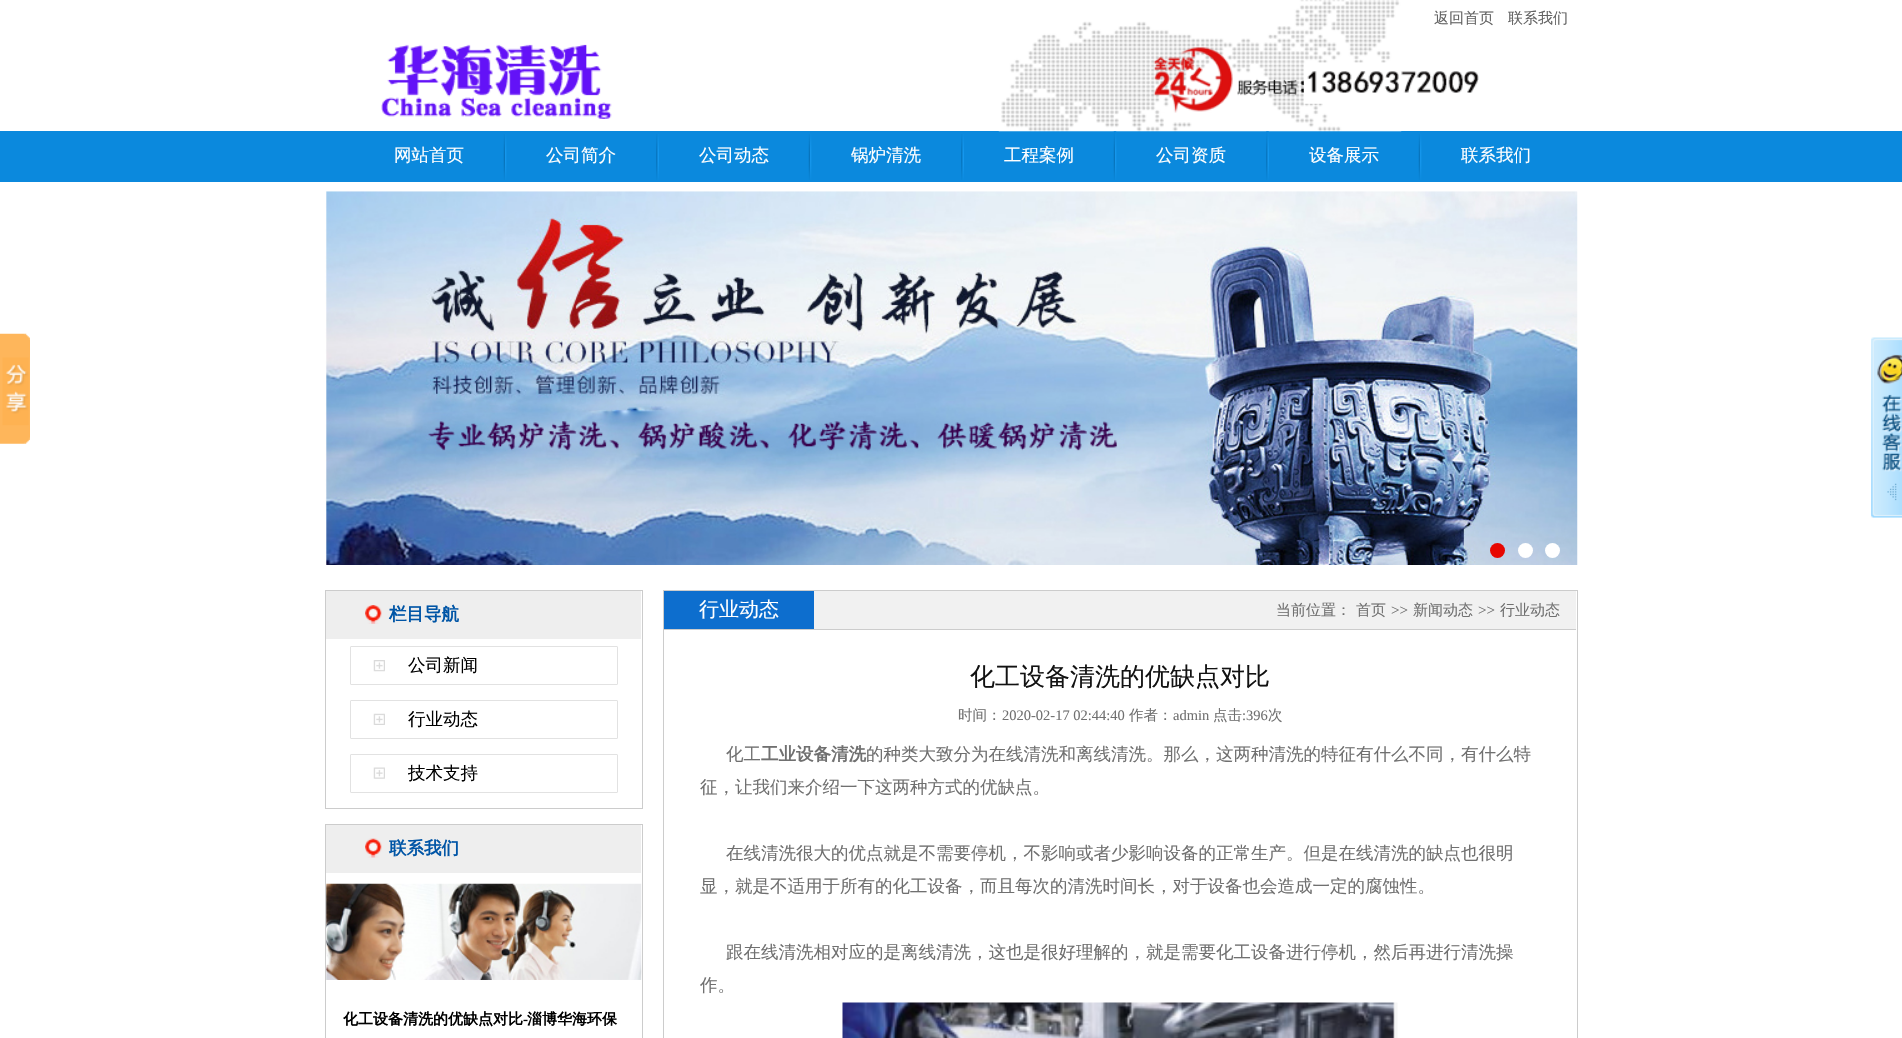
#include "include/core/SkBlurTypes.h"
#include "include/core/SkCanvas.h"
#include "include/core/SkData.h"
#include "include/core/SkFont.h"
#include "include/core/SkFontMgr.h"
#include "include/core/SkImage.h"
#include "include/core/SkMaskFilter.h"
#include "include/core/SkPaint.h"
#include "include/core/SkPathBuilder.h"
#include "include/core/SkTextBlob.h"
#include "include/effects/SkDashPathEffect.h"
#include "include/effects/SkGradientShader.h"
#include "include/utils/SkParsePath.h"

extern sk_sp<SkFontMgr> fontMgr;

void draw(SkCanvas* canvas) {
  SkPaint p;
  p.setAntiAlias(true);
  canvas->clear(SK_ColorWHITE);
  p.setColor(SkColorSetRGB(11, 137, 221));
  canvas->drawRect(SkRect::MakeLTRB(0, 131, 1902, 182), p);
  canvas->drawImageRect(SkImages::DeferredFromEncodedData(SkData::MakeFromFileName("images/1.png")), SkRect::MakeLTRB(998, 0, 1402, 132), SkSamplingOptions());
  canvas->drawImageRect(SkImages::DeferredFromEncodedData(SkData::MakeFromFileName("images/2.png")), SkRect::MakeLTRB(1153, 47, 1479, 113), SkSamplingOptions());
  canvas->drawImageRect(SkImages::DeferredFromEncodedData(SkData::MakeFromFileName("images/3.png")), SkRect::MakeLTRB(381, 44, 612, 119), SkSamplingOptions());
  canvas->drawImageRect(SkImages::DeferredFromEncodedData(SkData::MakeFromFileName("images/4.png")), SkRect::MakeLTRB(503, 134, 507, 180), SkSamplingOptions());
  canvas->drawImageRect(SkImages::DeferredFromEncodedData(SkData::MakeFromFileName("images/5.png")), SkRect::MakeLTRB(656, 134, 659, 180), SkSamplingOptions());
  canvas->drawImageRect(SkImages::DeferredFromEncodedData(SkData::MakeFromFileName("images/4.png")), SkRect::MakeLTRB(808, 134, 812, 180), SkSamplingOptions());
  canvas->drawImageRect(SkImages::DeferredFromEncodedData(SkData::MakeFromFileName("images/5.png")), SkRect::MakeLTRB(961, 134, 964, 180), SkSamplingOptions());
  canvas->drawImageRect(SkImages::DeferredFromEncodedData(SkData::MakeFromFileName("images/6.png")), SkRect::MakeLTRB(1113, 131, 1117, 180), SkSamplingOptions());
  canvas->drawImageRect(SkImages::DeferredFromEncodedData(SkData::MakeFromFileName("images/7.png")), SkRect::MakeLTRB(1266, 131, 1269, 180), SkSamplingOptions());
  canvas->drawImageRect(SkImages::DeferredFromEncodedData(SkData::MakeFromFileName("images/4.png")), SkRect::MakeLTRB(1418, 134, 1422, 180), SkSamplingOptions());
  canvas->drawImageRect(SkImages::DeferredFromEncodedData(SkData::MakeFromFileName("images/8.png")), SkRect::MakeLTRB(325, 191, 1578, 565), SkSamplingOptions());
  p.setColor(SkColorSetRGB(231, 6, 0));
  canvas->drawCircle(1497.5f, 550.5f, 7.5f, p);
  p.setColor(SK_ColorWHITE);
  canvas->drawCircle(1525.5f, 550.5f, 7.5f, p);
  canvas->drawCircle(1552.5f, 550.5f, 7.5f, p);
  canvas->drawImageRect(SkImages::DeferredFromEncodedData(SkData::MakeFromFileName("images/9.png")), SkRect::MakeLTRB(0, 333, 30, 444), SkSamplingOptions());
  canvas->drawImageRect(SkImages::DeferredFromEncodedData(SkData::MakeFromFileName("images/10.png")), SkRect::MakeLTRB(1871, 337, 1902, 518), SkSamplingOptions());
  p.setStyle(SkPaint::kStroke_Style);
  p.setStrokeWidth(1);
  p.setColor(SkColorSetRGB(204, 204, 204));
  canvas->drawRect(SkRect::MakeLTRB(325.5f, 590.5f, 642.5f, 808.5f), p);
  p.setStyle(SkPaint::kFill_Style);
  p.setColor(SkColorSetRGB(238, 238, 238));
  canvas->drawRect(SkRect::MakeLTRB(326, 591, 641, 639), p);
  canvas->drawImageRect(SkImages::DeferredFromEncodedData(SkData::MakeFromFileName("images/11.png")), SkRect::MakeLTRB(365, 605, 382, 624), SkSamplingOptions());
  canvas->drawImageRect(SkImages::DeferredFromEncodedData(SkData::MakeFromFileName("images/12.png")), SkRect::MakeLTRB(373, 660, 385, 672), SkSamplingOptions());
  p.setStyle(SkPaint::kStroke_Style);
  p.setColor(SkColorSetRGB(226, 226, 226));
  canvas->drawRoundRect(SkRect::MakeLTRB(350.5f, 646.5f, 617.5f, 684.5f), 0.5f, 0.5f, p);
  canvas->drawImageRect(SkImages::DeferredFromEncodedData(SkData::MakeFromFileName("images/13.png")), SkRect::MakeLTRB(373, 713, 385, 725), SkSamplingOptions());
  canvas->drawRoundRect(SkRect::MakeLTRB(350.5f, 700.5f, 617.5f, 738.5f), 0.5f, 0.5f, p);
  canvas->drawImageRect(SkImages::DeferredFromEncodedData(SkData::MakeFromFileName("images/14.png")), SkRect::MakeLTRB(373, 767, 385, 779), SkSamplingOptions());
  canvas->drawRoundRect(SkRect::MakeLTRB(350.5f, 754.5f, 617.5f, 792.5f), 0.5f, 0.5f, p);
  p.setColor(SkColorSetRGB(204, 204, 204));
  canvas->drawRect(SkRect::MakeLTRB(325.5f, 824.5f, 642.5f, 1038.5f), p);
  p.setStyle(SkPaint::kFill_Style);
  p.setColor(SkColorSetRGB(238, 238, 238));
  canvas->drawRect(SkRect::MakeLTRB(326, 825, 641, 873), p);
  canvas->drawImageRect(SkImages::DeferredFromEncodedData(SkData::MakeFromFileName("images/15.png")), SkRect::MakeLTRB(365, 838, 382, 858), SkSamplingOptions());
  canvas->drawImageRect(SkImages::DeferredFromEncodedData(SkData::MakeFromFileName("images/16.png")), SkRect::MakeLTRB(326, 883, 642, 980), SkSamplingOptions());
  p.setStyle(SkPaint::kStroke_Style);
  p.setColor(SkColorSetRGB(204, 204, 204));
  canvas->drawRect(SkRect::MakeLTRB(663.5f, 590.5f, 1577.5f, 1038.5f), p);
  p.setStyle(SkPaint::kFill_Style);
  p.setColor(SkColorSetRGB(241, 241, 241));
  canvas->drawRect(SkRect::MakeLTRB(814, 591, 1576, 629), p);
  p.setColor(SkColorSetRGB(204, 204, 204));
  canvas->drawRect(SkRect::MakeLTRB(664, 629, 1576, 630), p);
  p.setColor(SkColorSetRGB(13, 110, 206));
  canvas->drawRect(SkRect::MakeLTRB(664, 591, 814, 629), p);
  canvas->drawImageRect(SkImages::DeferredFromEncodedData(SkData::MakeFromFileName("images/17.png")), SkRect::MakeLTRB(842, 1002, 1398, 1038), SkSamplingOptions());
  SkFont font1(fontMgr->matchFamilyStyle("WenQuanYi Zen Hei", SkFontStyle(500, SkFontStyle::kNormal_Width, SkFontStyle::kUpright_Slant)), 15);
  font1.setSubpixel(true);
  p.setColor(SkColorSetRGB(99, 99, 99));
  canvas->drawString("返回首页", 1434, 23, font1, p);
  canvas->drawString("联系我们", 1508, 23, font1, p);
  SkFont font2(fontMgr->matchFamilyStyle("WenQuanYi Zen Hei", SkFontStyle(500, SkFontStyle::kNormal_Width, SkFontStyle::kUpright_Slant)), 17.5f);
  font2.setSubpixel(true);
  p.setColor(SK_ColorWHITE);
  canvas->drawString("网站首页", 394, 161, font2, p);
  canvas->drawString("公司简介", 546, 161, font2, p);
  canvas->drawString("公司动态", 699, 161, font2, p);
  canvas->drawString("锅炉清洗", 851, 161, font2, p);
  canvas->drawString("工程案例", 1004, 161, font2, p);
  canvas->drawString("公司资质", 1156, 161, font2, p);
  canvas->drawString("设备展示", 1309, 161, font2, p);
  canvas->drawString("联系我们", 1461, 161, font2, p);
  SkFont font3(fontMgr->matchFamilyStyle("WenQuanYi Zen Hei", SkFontStyle::Bold()), 17.5f);
  font3.setSubpixel(true);
  p.setColor(SkColorSetRGB(0, 85, 166));
  canvas->drawString("栏目导航", 389, 620, font3, p);
  p.setColor(SK_ColorBLACK);
  canvas->drawString("公司新闻", 408, 671, font2, p);
  canvas->drawString("行业动态", 408, 725, font2, p);
  canvas->drawString("技术支持", 408, 779, font2, p);
  p.setColor(SkColorSetRGB(0, 85, 166));
  canvas->drawString("联系我们", 389, 854, font3, p);
  SkFont font4(fontMgr->matchFamilyStyle("WenQuanYi Zen Hei", SkFontStyle::Bold()), 15);
  font4.setSubpixel(true);
  p.setColor(SK_ColorBLACK);
  canvas->drawString("化工设备清洗的优缺点对比", 343, 1024, font4, p);
  SkFont font5(fontMgr->matchFamilyStyle("Liberation Serif", SkFontStyle::Bold()), 15);
  font5.setSubpixel(true);
  canvas->drawString("-", 523, 1024, font5, p);
  canvas->drawString("淄博华海环保", 527, 1024, font4, p);
  SkFont font6(fontMgr->matchFamilyStyle("WenQuanYi Zen Hei", SkFontStyle(500, SkFontStyle::kNormal_Width, SkFontStyle::kUpright_Slant)), 20);
  font6.setSubpixel(true);
  p.setColor(SK_ColorWHITE);
  canvas->drawString("行业动态", 699, 616, font6, p);
  p.setColor(SkColorSetRGB(112, 112, 112));
  canvas->drawString("当前位置：", 1276, 615, font1, p);
  canvas->drawString("首页", 1356, 615, font1, p);
  SkFont font7(fontMgr->matchFamilyStyle("Liberation Serif", SkFontStyle::Normal()), 15);
  font7.setSubpixel(true);
  canvas->drawString(">>", 1391, 615, font7, p);
  canvas->drawString("新闻动态", 1413, 615, font1, p);
  canvas->drawString(">>", 1478, 615, font7, p);
  canvas->drawString("行业动态", 1500, 615, font1, p);
  SkFont font8(fontMgr->matchFamilyStyle("WenQuanYi Zen Hei", SkFontStyle(500, SkFontStyle::kNormal_Width, SkFontStyle::kUpright_Slant)), 25);
  font8.setSubpixel(true);
  p.setColor(SkColorSetRGB(18, 18, 18));
  canvas->drawString("化工设备清洗的优缺点对比", 970, 685, font8, p);
  SkFont font9(fontMgr->matchFamilyStyle("WenQuanYi Zen Hei", SkFontStyle(500, SkFontStyle::kNormal_Width, SkFontStyle::kUpright_Slant)), 14.5f);
  font9.setSubpixel(true);
  p.setColor(SkColorSetRGB(112, 112, 112));
  canvas->drawString("时间：", 958, 720, font9, p);
  SkFont font10(fontMgr->matchFamilyStyle("Liberation Serif", SkFontStyle::Normal()), 14.5f);
  font10.setSubpixel(true);
  canvas->drawString("2020-02-17 02:44:40", 1002, 720, font10, p);
  canvas->drawString("作者：", 1129, 720, font9, p);
  canvas->drawString("admin", 1173, 720, font10, p);
  canvas->drawString("点击", 1213, 720, font9, p);
  canvas->drawString(":396", 1242, 720, font10, p);
  canvas->drawString("次", 1268, 720, font9, p);
  canvas->drawString("化工", 726, 760, font2, p);
  canvas->drawString("工业设备清洗", 761, 760, font3, p);
  canvas->drawString("的种类大致分为在线清洗和离线清洗。那么，这两种清洗的特征有什么不同，有什么特", 866, 760, font2, p);
  canvas->drawString("征，让我们来介绍一下这两种方式的优缺点。", 700, 793, font2, p);
  canvas->drawString("在线清洗很大的优点就是不需要停机，不影响或者少影响设备的正常生产。但是在线清洗的缺点也很明", 726, 859, font2, p);
  canvas->drawString("显，就是不适用于所有的化工设备，而且每次的清洗时间长，对于设备也会造成一定的腐蚀性。", 700, 892, font2, p);
  canvas->drawString("跟在线清洗相对应的是离线清洗，这也是很好理解的，就是需要化工设备进行停机，然后再进行清洗操", 726, 958, font2, p);
  canvas->drawString("作。", 700, 991, font2, p);
}
